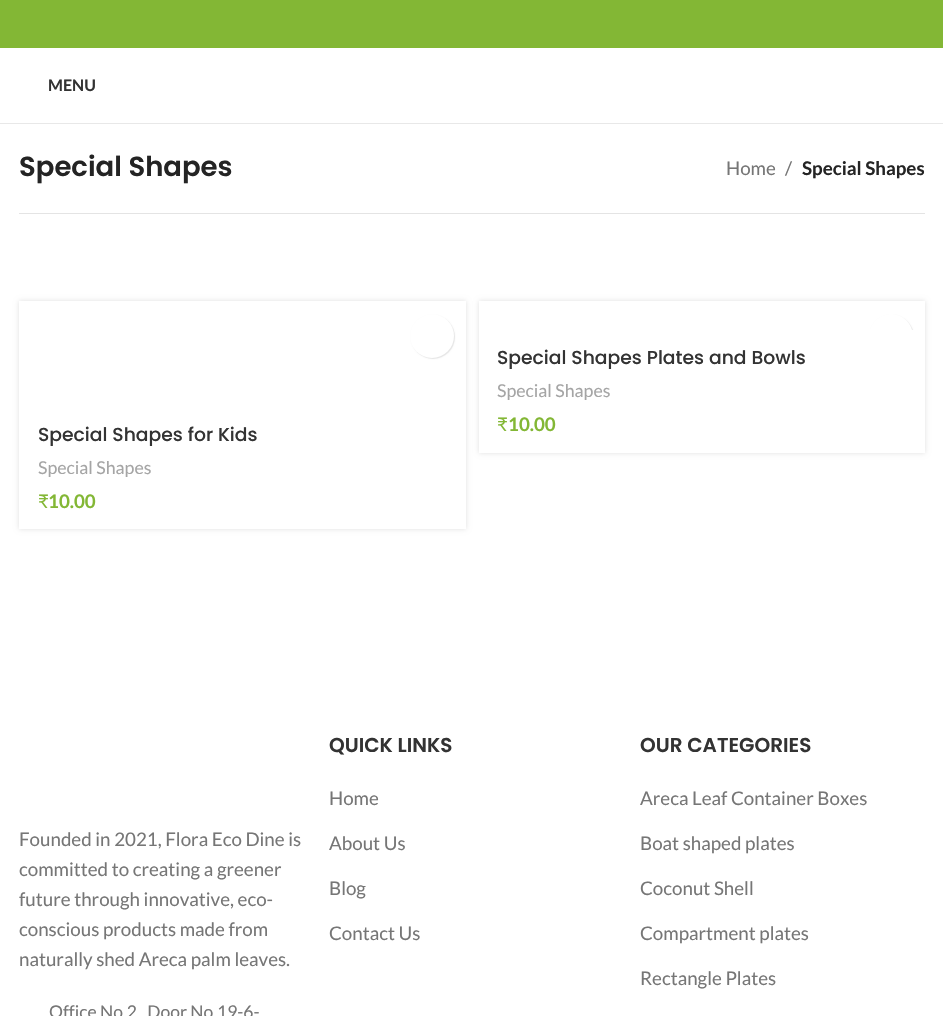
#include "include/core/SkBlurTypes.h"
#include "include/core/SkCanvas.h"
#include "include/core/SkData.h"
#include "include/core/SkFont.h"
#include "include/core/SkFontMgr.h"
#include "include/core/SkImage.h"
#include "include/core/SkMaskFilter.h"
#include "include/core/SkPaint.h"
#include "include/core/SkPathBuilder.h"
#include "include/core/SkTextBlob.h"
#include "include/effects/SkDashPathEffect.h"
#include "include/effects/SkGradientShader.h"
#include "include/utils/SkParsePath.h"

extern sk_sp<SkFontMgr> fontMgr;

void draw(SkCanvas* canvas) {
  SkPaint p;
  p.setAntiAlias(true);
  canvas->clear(SK_ColorWHITE);
  p.setColor(SkColorSetRGB(131, 183, 53));
  canvas->drawRect(SkRect::MakeLTRB(0, 0, 943, 48), p);
  p.setColor(SkColorSetRGB(232, 232, 232));
  canvas->drawRect(SkRect::MakeLTRB(0, 123, 943, 124), p);
  p.setColor(SkColorSetRGB(228, 228, 228));
  canvas->drawRect(SkRect::MakeLTRB(19, 213, 925, 214), p);
  p.setColor(SkColorSetARGB(31, 0, 0, 0));
  p.setMaskFilter(SkMaskFilter::MakeBlur(kNormal_SkBlurStyle, 2.5f));
  canvas->drawRect(SkRect::MakeLTRB(479, 301, 925, 453), p);
  p.setMaskFilter(nullptr);
  p.setColor(SK_ColorWHITE);
  canvas->drawRect(SkRect::MakeLTRB(479, 301, 925, 453), p);
  canvas->save();
  canvas->clipRect(SkRect::MakeLTRB(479, 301, 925, 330));
  p.setColor(SkColorSetARGB(26, 0, 0, 0));
  p.setMaskFilter(SkMaskFilter::MakeBlur(kNormal_SkBlurStyle, 0.5f));
  canvas->drawRoundRect(SkRect::MakeLTRB(870, 315, 914, 359), 22, 22, p);
  p.setMaskFilter(nullptr);
  canvas->restore();
  p.setColor(SK_ColorWHITE);
  canvas->drawPath(SkPathBuilder().moveTo(891, 314).cubicTo(903, 314, 913, 324, 913, 336).lineTo(913, 330).lineTo(869, 330).lineTo(869, 336).cubicTo(869, 324, 879, 314, 891, 314).close().detach(), p);
  p.setColor(SkColorSetARGB(31, 0, 0, 0));
  p.setMaskFilter(SkMaskFilter::MakeBlur(kNormal_SkBlurStyle, 2.5f));
  canvas->drawRect(SkRect::MakeLTRB(19, 301, 466, 529), p);
  p.setMaskFilter(nullptr);
  p.setColor(SK_ColorWHITE);
  canvas->drawRect(SkRect::MakeLTRB(19, 301, 466, 529), p);
  p.setColor(SkColorSetARGB(26, 0, 0, 0));
  p.setMaskFilter(SkMaskFilter::MakeBlur(kNormal_SkBlurStyle, 0.5f));
  canvas->drawRoundRect(SkRect::MakeLTRB(411, 315, 455, 359), 22, 22, p);
  p.setMaskFilter(nullptr);
  p.setColor(SK_ColorWHITE);
  canvas->drawCircle(432, 336, 22, p);
  SkFont font1(fontMgr->matchFamilyStyle("Lato", SkFontStyle::Bold()), 16);
  font1.setSubpixel(true);
  p.setColor(SkColorSetRGB(51, 51, 51));
  canvas->drawString("MENU", 48, 91, font1, p);
  SkFont font2(fontMgr->matchFamilyStyle("Poppins", SkFontStyle(600, SkFontStyle::kNormal_Width, SkFontStyle::kUpright_Slant)), 27.5f);
  font2.setSubpixel(true);
  p.setColor(SkColorSetRGB(36, 36, 36));
  canvas->drawString("Special Shapes", 19, 176, font2, p);
  SkFont font3(fontMgr->matchFamilyStyle("Lato", SkFontStyle::Normal()), 18.75f);
  font3.setSubpixel(true);
  p.setColor(SkColorSetRGB(118, 118, 118));
  canvas->drawString("Home", 726, 175, font3, p);
  canvas->drawString("/", 785, 175, font3, p);
  SkFont font4(fontMgr->matchFamilyStyle("Lato", SkFontStyle::Bold()), 18.75f);
  font4.setSubpixel(true);
  p.setColor(SkColorSetRGB(36, 36, 36));
  canvas->drawString("Special Shapes", 802, 175, font4, p);
  SkFont font5(fontMgr->matchFamilyStyle("Poppins", SkFontStyle(500, SkFontStyle::kNormal_Width, SkFontStyle::kUpright_Slant)), 18.75f);
  font5.setSubpixel(true);
  p.setColor(SkColorSetRGB(51, 51, 51));
  canvas->drawString("Special Shapes Plates and Bowls", 497, 364, font5, p);
  SkFont font6(fontMgr->matchFamilyStyle("Lato", SkFontStyle::Normal()), 17.75f);
  font6.setSubpixel(true);
  p.setColor(SkColorSetRGB(165, 165, 165));
  canvas->drawString("Special Shapes", 497, 397, font6, p);
  SkFont font7(fontMgr->matchFamilyStyle("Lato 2", SkFontStyle::Normal()), 18.75f);
  font7.setSubpixel(true);
  p.setColor(SkColorSetRGB(131, 183, 53));
  canvas->drawString("₹", 497, 431, font7, p);
  canvas->drawString("10.00", 508, 431, font4, p);
  p.setColor(SkColorSetRGB(51, 51, 51));
  canvas->drawString("Special Shapes for Kids", 38, 441, font5, p);
  p.setColor(SkColorSetRGB(165, 165, 165));
  canvas->drawString("Special Shapes", 38, 474, font6, p);
  p.setColor(SkColorSetRGB(131, 183, 53));
  canvas->drawString("₹", 38, 508, font7, p);
  canvas->drawString("10.00", 48, 508, font4, p);
  p.setColor(SkColorSetRGB(118, 118, 118));
  canvas->drawString("Founded in 2021, Flora Eco Dine is", 19, 846, font3, p);
  canvas->drawString("committed to creating a greener", 19, 876, font3, p);
  canvas->drawString("future through innovative, eco-", 19, 906, font3, p);
  canvas->drawString("conscious products made from", 19, 936, font3, p);
  canvas->drawString("naturally shed Areca palm leaves.", 19, 966, font3, p);
  SkFont font8(fontMgr->matchFamilyStyle("Lato", SkFontStyle::Normal()), 17.5f);
  font8.setSubpixel(true);
  canvas->drawString("Office No.2 , Door No.19-6-", 49, 1018, font8, p);
  SkFont font9(fontMgr->matchFamilyStyle("Poppins", SkFontStyle(600, SkFontStyle::kNormal_Width, SkFontStyle::kUpright_Slant)), 20);
  font9.setSubpixel(true);
  p.setColor(SkColorSetRGB(51, 51, 51));
  canvas->drawString("QUICK LINKS", 329, 752, font9, p);
  p.setColor(SkColorSetRGB(118, 118, 118));
  canvas->drawString("Home", 329, 805, font3, p);
  canvas->drawString("About Us", 329, 850, font3, p);
  canvas->drawString("Blog", 329, 895, font3, p);
  canvas->drawString("Contact Us", 329, 940, font3, p);
  p.setColor(SkColorSetRGB(51, 51, 51));
  canvas->drawString("OUR CATEGORIES", 640, 752, font9, p);
  p.setColor(SkColorSetRGB(118, 118, 118));
  canvas->drawString("Areca Leaf Container Boxes", 640, 805, font3, p);
  canvas->drawString("Boat shaped plates", 640, 850, font3, p);
  canvas->drawString("Coconut Shell", 640, 895, font3, p);
  canvas->drawString("Compartment plates", 640, 940, font3, p);
  canvas->drawString("Rectangle Plates", 640, 985, font3, p);
}
